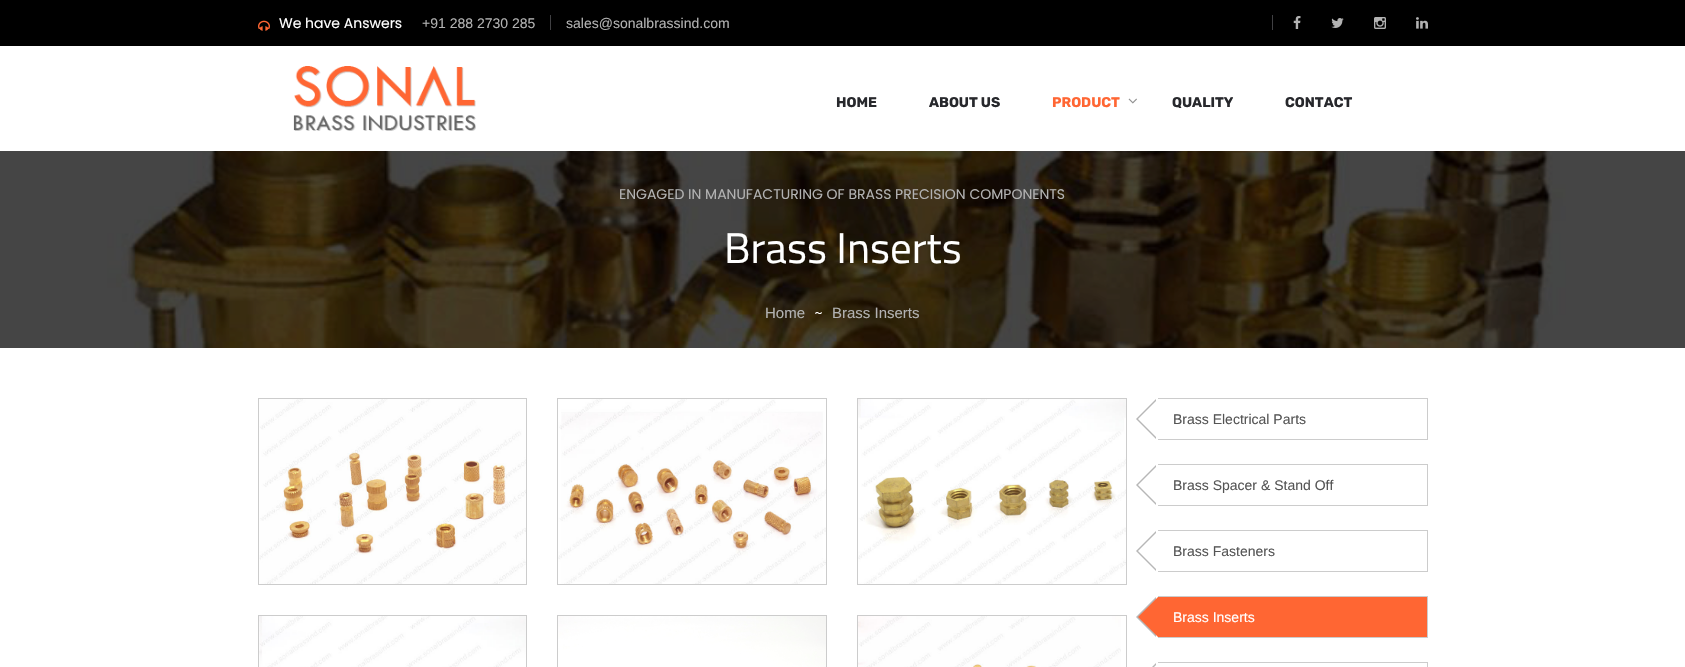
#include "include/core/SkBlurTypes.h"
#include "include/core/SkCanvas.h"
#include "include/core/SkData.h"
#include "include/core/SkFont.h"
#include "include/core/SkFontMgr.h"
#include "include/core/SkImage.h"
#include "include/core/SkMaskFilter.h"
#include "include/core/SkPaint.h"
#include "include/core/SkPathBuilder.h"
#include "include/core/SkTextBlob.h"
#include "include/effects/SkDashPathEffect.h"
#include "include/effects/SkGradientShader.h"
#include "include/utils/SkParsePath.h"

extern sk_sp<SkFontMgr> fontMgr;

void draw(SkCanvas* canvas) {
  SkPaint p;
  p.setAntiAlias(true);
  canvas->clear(SK_ColorWHITE);
  p.setColor(SK_ColorBLACK);
  canvas->drawRect(SkRect::MakeLTRB(0, 0, 1685, 46), p);
  canvas->drawImageRect(SkImages::DeferredFromEncodedData(SkData::MakeFromFileName("images/1.png")), SkRect::MakeLTRB(258, 20, 270, 31), SkSamplingOptions());
  p.setColor(SkColorSetRGB(64, 64, 67));
  canvas->drawRect(SkRect::MakeLTRB(550, 15, 551, 30), p);
  canvas->drawRect(SkRect::MakeLTRB(1272, 15, 1273, 30), p);
  canvas->drawImageRect(SkImages::DeferredFromEncodedData(SkData::MakeFromFileName("images/2.png")), SkRect::MakeLTRB(1293, 16, 1301, 29), SkSamplingOptions());
  canvas->drawImageRect(SkImages::DeferredFromEncodedData(SkData::MakeFromFileName("images/3.png")), SkRect::MakeLTRB(1331, 18, 1344, 28), SkSamplingOptions());
  canvas->drawImageRect(SkImages::DeferredFromEncodedData(SkData::MakeFromFileName("images/4.png")), SkRect::MakeLTRB(1374, 17, 1386, 29), SkSamplingOptions());
  canvas->drawImageRect(SkImages::DeferredFromEncodedData(SkData::MakeFromFileName("images/5.png")), SkRect::MakeLTRB(1416, 17, 1428, 29), SkSamplingOptions());
  canvas->drawImageRect(SkImages::DeferredFromEncodedData(SkData::MakeFromFileName("images/6.png")), SkRect::MakeLTRB(293, 66, 476, 131), SkSamplingOptions());
  canvas->drawImageRect(SkImages::DeferredFromEncodedData(SkData::MakeFromFileName("images/7.png")), SkRect::MakeLTRB(1128, 98, 1137, 104), SkSamplingOptions());
  canvas->drawImageRect(SkImages::DeferredFromEncodedData(SkData::MakeFromFileName("images/8.png")), SkRect::MakeLTRB(0, 151, 1685, 348), SkSamplingOptions());
  canvas->drawImageRect(SkImages::DeferredFromEncodedData(SkData::MakeFromFileName("images/9.png")), SkRect::MakeLTRB(815, 312, 822, 314), SkSamplingOptions());
  p.setStyle(SkPaint::kStroke_Style);
  p.setStrokeWidth(1);
  p.setColor(SkColorSetRGB(204, 204, 204));
  canvas->drawRect(SkRect::MakeLTRB(258.5f, 398.5f, 526.5f, 584.5f), p);
  canvas->drawImageRect(SkImages::DeferredFromEncodedData(SkData::MakeFromFileName("images/10.png")), SkRect::MakeLTRB(259, 399, 526, 584), SkSamplingOptions());
  canvas->drawRect(SkRect::MakeLTRB(557.5f, 398.5f, 826.5f, 584.5f), p);
  canvas->drawImageRect(SkImages::DeferredFromEncodedData(SkData::MakeFromFileName("images/11.png")), SkRect::MakeLTRB(558, 399, 826, 584), SkSamplingOptions());
  canvas->drawRect(SkRect::MakeLTRB(857.5f, 398.5f, 1126.5f, 584.5f), p);
  canvas->drawImageRect(SkImages::DeferredFromEncodedData(SkData::MakeFromFileName("images/12.png")), SkRect::MakeLTRB(858, 399, 1126, 584), SkSamplingOptions());
  canvas->drawRect(SkRect::MakeLTRB(258.5f, 615.5f, 526.5f, 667.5f), p);
  canvas->drawImageRect(SkImages::DeferredFromEncodedData(SkData::MakeFromFileName("images/13.png")), SkRect::MakeLTRB(259, 616, 526, 667), SkSamplingOptions());
  canvas->drawRect(SkRect::MakeLTRB(557.5f, 615.5f, 826.5f, 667.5f), p);
  canvas->drawImageRect(SkImages::DeferredFromEncodedData(SkData::MakeFromFileName("images/14.png")), SkRect::MakeLTRB(558, 616, 826, 667), SkSamplingOptions());
  canvas->drawRect(SkRect::MakeLTRB(857.5f, 615.5f, 1126.5f, 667.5f), p);
  canvas->drawImageRect(SkImages::DeferredFromEncodedData(SkData::MakeFromFileName("images/15.png")), SkRect::MakeLTRB(858, 616, 1121, 667), SkSamplingOptions());
  p.setStyle(SkPaint::kFill_Style);
  canvas->drawRect(SkRect::MakeLTRB(1158, 398, 1428, 399), p);
  canvas->drawRect(SkRect::MakeLTRB(1427, 398, 1428, 440), p);
  canvas->drawRect(SkRect::MakeLTRB(1158, 439, 1428, 440), p);
  p.setColor(SkColorSetRGB(183, 183, 183));
  canvas->drawPath(SkPathBuilder().moveTo(1156, 399).lineTo(1156, 439).lineTo(1136, 419).close().detach(), p);
  p.setColor(SK_ColorWHITE);
  canvas->drawPath(SkPathBuilder().moveTo(1158, 399).lineTo(1158, 439).lineTo(1138, 419).close().detach(), p);
  p.setColor(SkColorSetRGB(204, 204, 204));
  canvas->drawRect(SkRect::MakeLTRB(1158, 464, 1428, 465), p);
  canvas->drawRect(SkRect::MakeLTRB(1427, 464, 1428, 506), p);
  canvas->drawRect(SkRect::MakeLTRB(1158, 505, 1428, 506), p);
  p.setColor(SkColorSetRGB(183, 183, 183));
  canvas->drawPath(SkPathBuilder().moveTo(1156, 465).lineTo(1156, 505).lineTo(1136, 485).close().detach(), p);
  p.setColor(SK_ColorWHITE);
  canvas->drawPath(SkPathBuilder().moveTo(1158, 465).lineTo(1158, 505).lineTo(1138, 485).close().detach(), p);
  p.setColor(SkColorSetRGB(204, 204, 204));
  canvas->drawRect(SkRect::MakeLTRB(1158, 530, 1428, 531), p);
  canvas->drawRect(SkRect::MakeLTRB(1427, 530, 1428, 572), p);
  canvas->drawRect(SkRect::MakeLTRB(1158, 571, 1428, 572), p);
  p.setColor(SkColorSetRGB(183, 183, 183));
  canvas->drawPath(SkPathBuilder().moveTo(1156, 531).lineTo(1156, 571).lineTo(1136, 551).close().detach(), p);
  p.setColor(SK_ColorWHITE);
  canvas->drawPath(SkPathBuilder().moveTo(1158, 531).lineTo(1158, 571).lineTo(1138, 551).close().detach(), p);
  p.setColor(SkColorSetRGB(255, 102, 51));
  canvas->drawRect(SkRect::MakeLTRB(1158, 597, 1427, 637), p);
  p.setColor(SkColorSetRGB(204, 204, 204));
  canvas->drawRect(SkRect::MakeLTRB(1158, 596, 1428, 597), p);
  canvas->drawRect(SkRect::MakeLTRB(1427, 596, 1428, 638), p);
  canvas->drawRect(SkRect::MakeLTRB(1158, 637, 1428, 638), p);
  p.setColor(SkColorSetRGB(183, 183, 183));
  canvas->drawPath(SkPathBuilder().moveTo(1156, 597).lineTo(1156, 637).lineTo(1136, 617).close().detach(), p);
  p.setColor(SkColorSetRGB(255, 102, 51));
  canvas->drawPath(SkPathBuilder().moveTo(1158, 597).lineTo(1158, 637).lineTo(1138, 617).close().detach(), p);
  p.setColor(SkColorSetRGB(204, 204, 204));
  canvas->drawRect(SkRect::MakeLTRB(1158, 662, 1428, 663), p);
  canvas->drawRect(SkRect::MakeLTRB(1427, 662, 1428, 667), p);
  p.setColor(SkColorSetRGB(183, 183, 183));
  canvas->drawPath(SkPathBuilder().moveTo(1156, 663).lineTo(1156, 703).lineTo(1136, 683).close().detach(), p);
  p.setColor(SK_ColorWHITE);
  canvas->drawPath(SkPathBuilder().moveTo(1158, 663).lineTo(1158, 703).lineTo(1138, 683).close().detach(), p);
  SkFont font1(fontMgr->matchFamilyStyle("Poppins", SkFontStyle::Normal()), 14);
  font1.setSubpixel(true);
  canvas->drawString("We have Answers", 279, 28, font1, p);
  SkFont font2(fontMgr->matchFamilyStyle("Liberation Sans", SkFontStyle::Normal()), 14);
  font2.setSubpixel(true);
  p.setColor(SkColorSetRGB(178, 178, 178));
  canvas->drawString("+91 288 2730 285", 422, 28, font2, p);
  canvas->drawString("sales@sonalbrassind.com", 566, 28, font2, p);
  SkFont font3(fontMgr->matchFamilyStyle("Rubik", SkFontStyle::Bold()), 14);
  font3.setSubpixel(true);
  p.setColor(SkColorSetRGB(39, 40, 44));
  canvas->drawString("HOME", 836, 107, font3, p);
  canvas->drawString("ABOUT US", 929, 107, font3, p);
  p.setColor(SkColorSetRGB(255, 102, 51));
  canvas->drawString("PRODUCT", 1052, 107, font3, p);
  p.setColor(SkColorSetRGB(39, 40, 44));
  canvas->drawString("QUALITY", 1172, 107, font3, p);
  canvas->drawString("CONTACT", 1285, 107, font3, p);
  p.setColor(SkColorSetRGB(178, 178, 178));
  canvas->drawString("ENGAGED IN MANUFACTURING OF BRASS PRECISION COMPONENTS", 619, 199, font1, p);
  SkFont font4(fontMgr->matchFamilyStyle("Titillium Web", SkFontStyle::Normal()), 43);
  font4.setSubpixel(true);
  p.setColor(SK_ColorWHITE);
  canvas->drawString("Brass Inserts", 724, 263, font4, p);
  SkFont font5(fontMgr->matchFamilyStyle("Liberation Sans", SkFontStyle::Normal()), 15);
  font5.setSubpixel(true);
  p.setColor(SkColorSetRGB(178, 178, 178));
  canvas->drawString("Home", 765, 318, font5, p);
  canvas->drawString("Brass Inserts", 832, 318, font5, p);
  p.setColor(SkColorSetRGB(85, 85, 85));
  canvas->drawString("Brass Electrical Parts", 1173, 424, font2, p);
  canvas->drawString("Brass Spacer & Stand Off", 1173, 490, font2, p);
  canvas->drawString("Brass Fasteners", 1173, 556, font2, p);
  p.setColor(SK_ColorWHITE);
  canvas->drawString("Brass Inserts", 1173, 622, font2, p);
}
